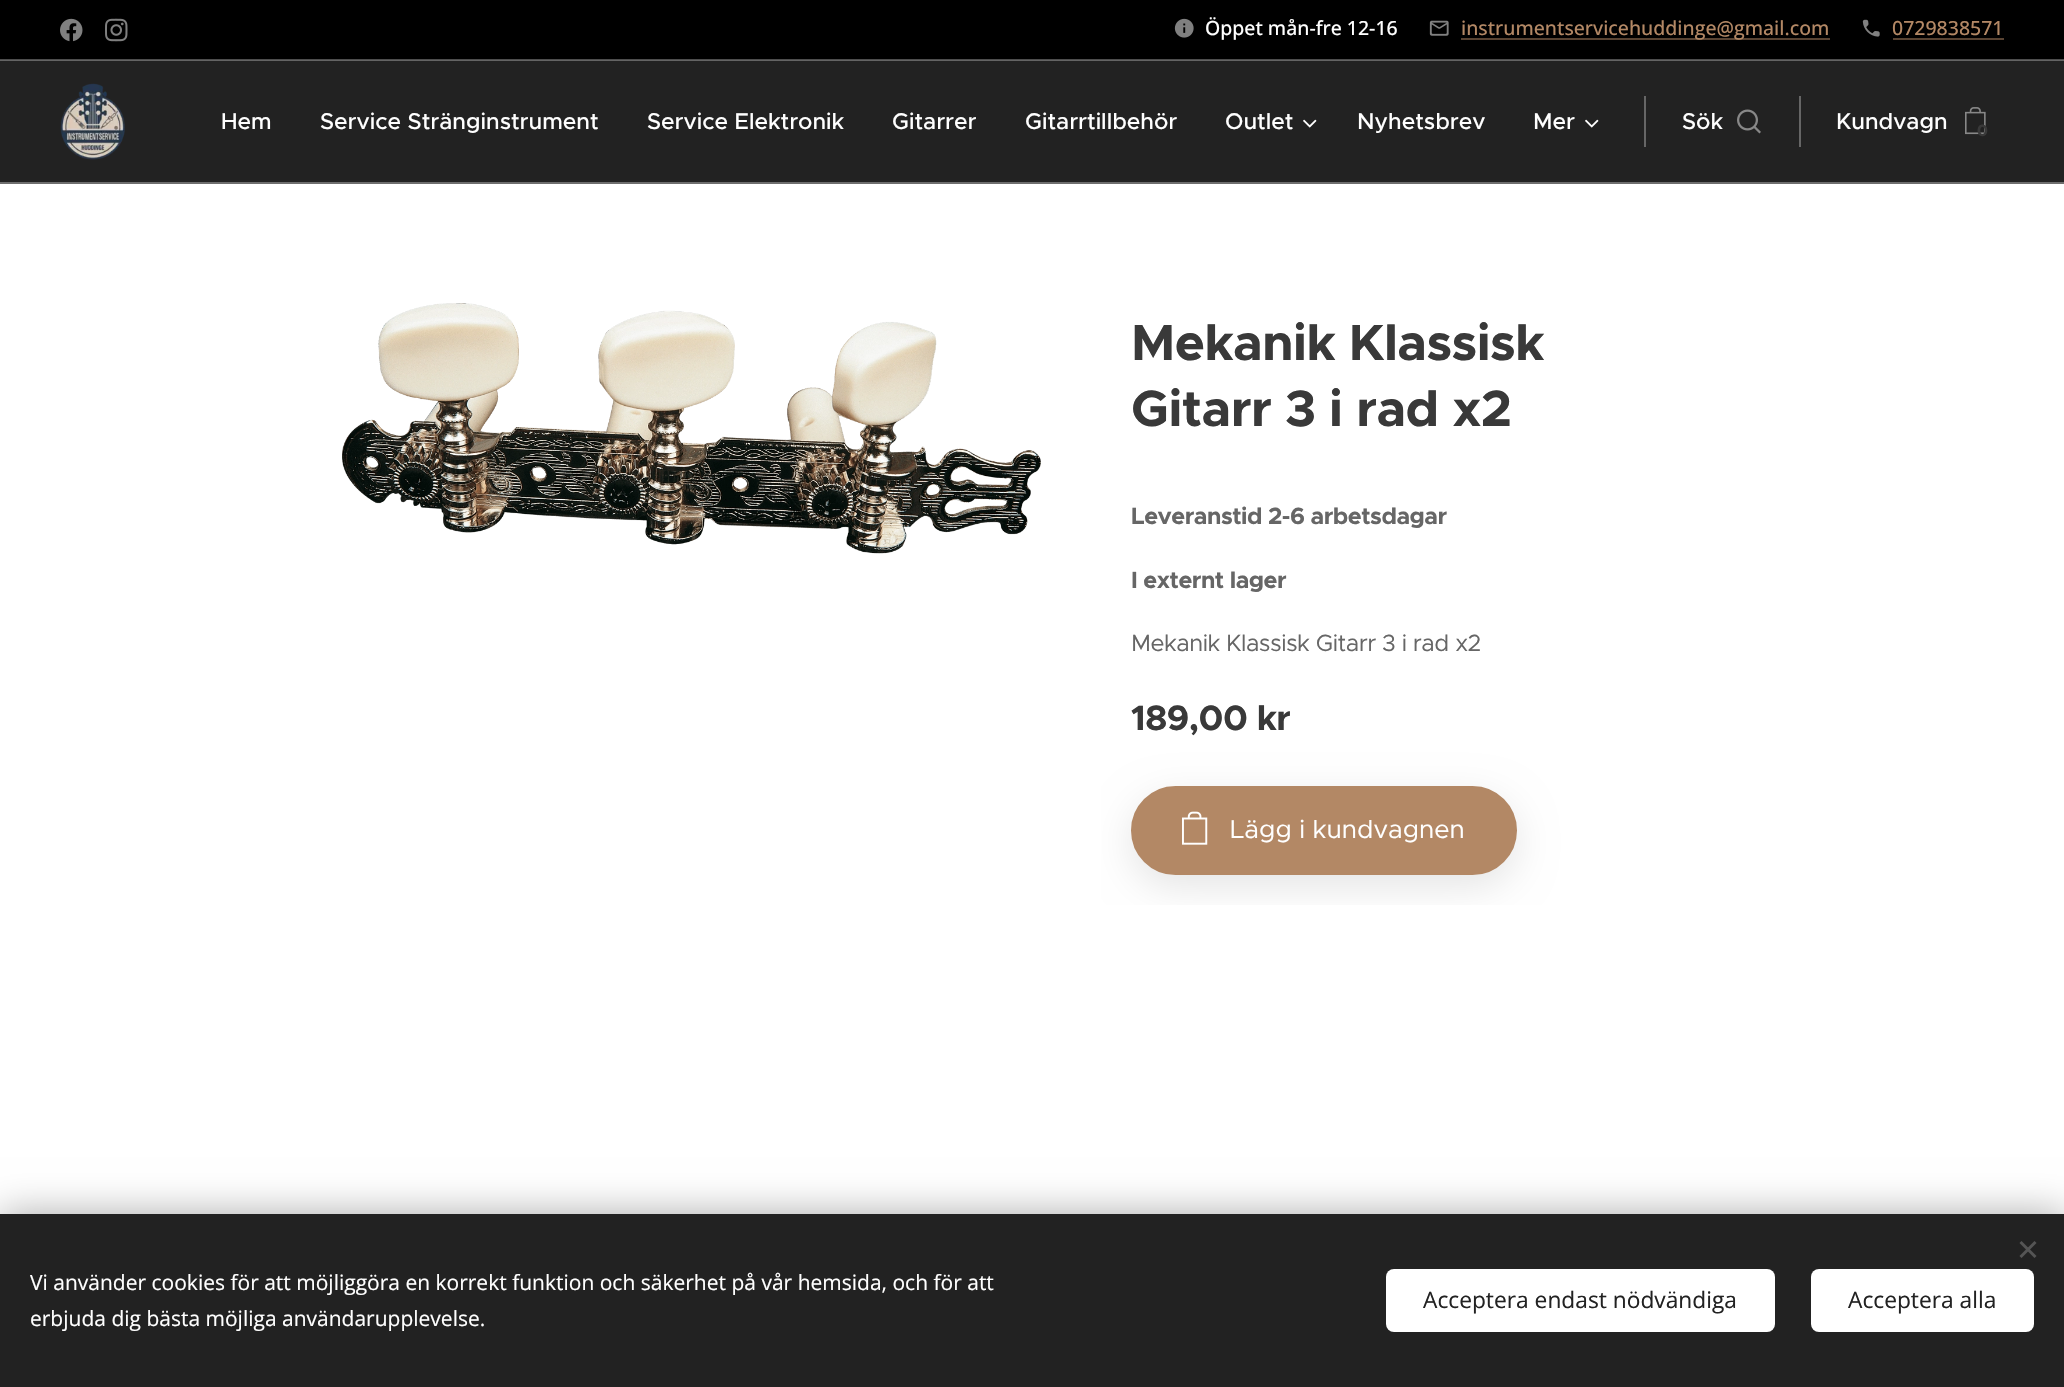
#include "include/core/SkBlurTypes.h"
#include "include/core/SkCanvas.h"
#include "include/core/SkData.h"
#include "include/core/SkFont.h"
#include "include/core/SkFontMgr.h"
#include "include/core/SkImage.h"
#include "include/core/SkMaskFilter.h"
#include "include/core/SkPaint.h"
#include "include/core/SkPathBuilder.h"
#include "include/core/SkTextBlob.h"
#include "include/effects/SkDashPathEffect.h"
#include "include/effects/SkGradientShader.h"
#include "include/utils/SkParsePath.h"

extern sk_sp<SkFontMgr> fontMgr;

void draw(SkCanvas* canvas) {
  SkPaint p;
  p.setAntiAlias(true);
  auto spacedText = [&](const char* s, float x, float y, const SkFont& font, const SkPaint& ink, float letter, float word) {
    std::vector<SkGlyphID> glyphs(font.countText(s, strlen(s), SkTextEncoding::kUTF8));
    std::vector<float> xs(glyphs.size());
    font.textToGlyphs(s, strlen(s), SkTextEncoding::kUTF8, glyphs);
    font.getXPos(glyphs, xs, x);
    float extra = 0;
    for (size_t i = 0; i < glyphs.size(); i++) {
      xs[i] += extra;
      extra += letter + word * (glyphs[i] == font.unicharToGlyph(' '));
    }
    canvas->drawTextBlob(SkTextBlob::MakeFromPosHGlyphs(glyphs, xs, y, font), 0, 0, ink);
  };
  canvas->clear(SK_ColorWHITE);
  p.setColor(SK_ColorBLACK);
  canvas->drawRect(SkRect::MakeLTRB(0, 0, 2064, 59), p);
  p.setColor(SkColorSetRGB(77, 77, 77));
  canvas->drawRect(SkRect::MakeLTRB(0, 59, 2064, 60), p);
  canvas->drawImageRect(SkImages::DeferredFromEncodedData(SkData::MakeFromFileName("images/1.png")), SkRect::MakeLTRB(60, 18, 83, 42), SkSamplingOptions());
  canvas->drawImageRect(SkImages::DeferredFromEncodedData(SkData::MakeFromFileName("images/2.png")), SkRect::MakeLTRB(105, 18, 128, 42), SkSamplingOptions());
  canvas->drawImageRect(SkImages::DeferredFromEncodedData(SkData::MakeFromFileName("images/3.png")), SkRect::MakeLTRB(1174, 18, 1194, 38), SkSamplingOptions());
  canvas->drawImageRect(SkImages::DeferredFromEncodedData(SkData::MakeFromFileName("images/4.png")), SkRect::MakeLTRB(1429, 20, 1449, 36), SkSamplingOptions());
  p.setColor(SkColorSetRGB(90, 68, 51));
  canvas->drawRect(SkRect::MakeLTRB(1461, 38, 1830, 40), p);
  canvas->drawImageRect(SkImages::DeferredFromEncodedData(SkData::MakeFromFileName("images/5.png")), SkRect::MakeLTRB(1862, 19, 1880, 37), SkSamplingOptions());
  canvas->drawRect(SkRect::MakeLTRB(1893, 38, 2004, 40), p);
  p.setColor(SkColorSetRGB(34, 34, 34));
  canvas->drawRect(SkRect::MakeLTRB(0, 61, 2064, 182), p);
  p.setColor(SkColorSetRGB(100, 100, 100));
  canvas->drawRect(SkRect::MakeLTRB(0, 60, 2064, 61), p);
  canvas->drawImageRect(SkImages::DeferredFromEncodedData(SkData::MakeFromFileName("images/6.png")), SkRect::MakeLTRB(60, 83, 125, 160), SkSamplingOptions());
  canvas->drawImageRect(SkImages::DeferredFromEncodedData(SkData::MakeFromFileName("images/7.png")), SkRect::MakeLTRB(1303, 119, 1317, 128), SkSamplingOptions());
  canvas->drawImageRect(SkImages::DeferredFromEncodedData(SkData::MakeFromFileName("images/7.png")), SkRect::MakeLTRB(1585, 119, 1599, 128), SkSamplingOptions());
  p.setColor(SkColorSetRGB(102, 102, 102));
  canvas->drawRect(SkRect::MakeLTRB(1644, 96, 1646, 147), p);
  canvas->drawImageRect(SkImages::DeferredFromEncodedData(SkData::MakeFromFileName("images/8.png")), SkRect::MakeLTRB(1737, 109, 1761, 134), SkSamplingOptions());
  canvas->drawRect(SkRect::MakeLTRB(1799, 96, 1801, 147), p);
  canvas->drawImageRect(SkImages::DeferredFromEncodedData(SkData::MakeFromFileName("images/9.png")), SkRect::MakeLTRB(1965, 107, 1986, 135), SkSamplingOptions());
  p.setColor(SkColorSetRGB(110, 110, 110));
  canvas->drawRect(SkRect::MakeLTRB(0, 182, 2064, 184), p);
  canvas->drawImageRect(SkImages::DeferredFromEncodedData(SkData::MakeFromFileName("images/10.png")), SkRect::MakeLTRB(342, 303, 1041, 554), SkSamplingOptions());
  canvas->save();
  canvas->clipRect(SkRect::MakeLTRB(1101, 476, 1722, 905));
  p.setColor(SkColorSetARGB(26, 0, 0, 0));
  p.setMaskFilter(SkMaskFilter::MakeBlur(kNormal_SkBlurStyle, 19));
  canvas->drawRoundRect(SkRect::MakeLTRB(1131, 798, 1517, 887), 44.5f, 44.5f, p);
  p.setMaskFilter(nullptr);
  canvas->restore();
  p.setColor(SkColorSetRGB(179, 136, 101));
  canvas->drawRoundRect(SkRect::MakeLTRB(1132.5f, 787.5f, 1515.5f, 873.5f), 43, 43, p);
  p.setStyle(SkPaint::kStroke_Style);
  p.setStrokeWidth(3);
  canvas->drawRoundRect(SkRect::MakeLTRB(1132.5f, 787.5f, 1515.5f, 873.5f), 43, 43, p);
  canvas->drawImageRect(SkImages::DeferredFromEncodedData(SkData::MakeFromFileName("images/11.png")), SkRect::MakeLTRB(1182, 811, 1208, 845), SkSamplingOptions());
  p.setStyle(SkPaint::kFill_Style);
  p.setColor(SkColorSetARGB(84, 0, 0, 0));
  p.setMaskFilter(SkMaskFilter::MakeBlur(kNormal_SkBlurStyle, 19));
  canvas->drawRect(SkRect::MakeLTRB(0, 1214, 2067, 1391), p);
  p.setMaskFilter(nullptr);
  p.setColor(SkColorSetRGB(34, 34, 34));
  canvas->drawRect(SkRect::MakeLTRB(0, 1214, 2064, 1387), p);
  p.setColor(SkColorSetRGB(85, 85, 85));
  canvas->drawPath(SkPathBuilder().moveTo(2019.5f, 1256).lineTo(2034.5f, 1241).lineTo(2036.5f, 1243).lineTo(2021.5f, 1258).close().detach(), p);
  canvas->drawPath(SkPathBuilder().moveTo(2021.5f, 1241).lineTo(2036.5f, 1256).lineTo(2034.5f, 1258).lineTo(2019.5f, 1243).close().detach(), p);
  p.setColor(SK_ColorWHITE);
  canvas->drawRoundRect(SkRect::MakeLTRB(1386, 1269, 1775, 1332), 8, 8, p);
  canvas->drawRoundRect(SkRect::MakeLTRB(1811, 1269, 2034, 1332), 8, 8, p);
  SkFont font1(fontMgr->matchFamilyStyle("Open Sans", SkFontStyle(500, SkFontStyle::kNormal_Width, SkFontStyle::kUpright_Slant)), 19.5f);
  font1.setSubpixel(true);
  canvas->drawString("Öppet mån-fre 12-16", 1205, 35, font1, p);
  p.setColor(SkColorSetRGB(179, 136, 101));
  canvas->drawString("instrumentservicehuddinge@gmail.com", 1461, 35, font1, p);
  canvas->drawString("0729838571", 1892, 35, font1, p);
  SkFont font2(fontMgr->matchFamilyStyle("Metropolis", SkFontStyle(500, SkFontStyle::kNormal_Width, SkFontStyle::kUpright_Slant)), 22.75f);
  font2.setSubpixel(true);
  p.setColor(SK_ColorWHITE);
  canvas->drawString("Hem", 221, 129, font2, p);
  canvas->drawString("Service Stränginstrument", 320, 129, font2, p);
  canvas->drawString("Service Elektronik", 647, 129, font2, p);
  canvas->drawString("Gitarrer", 892, 129, font2, p);
  canvas->drawString("Gitarrtillbehör", 1025, 129, font2, p);
  canvas->drawString("Outlet", 1225, 129, font2, p);
  canvas->drawString("Nyhetsbrev", 1357, 129, font2, p);
  canvas->drawString("Mer", 1533, 129, font2, p);
  canvas->drawString("Sök", 1682, 129, font2, p);
  canvas->drawString("Kundvagn", 1836, 129, font2, p);
  SkFont font3(fontMgr->matchFamilyStyle("Montserrat", SkFontStyle::Bold()), 16);
  font3.setSubpixel(true);
  p.setColor(SkColorSetRGB(57, 57, 57));
  canvas->drawString("0", 1977, 136, font3, p);
  SkFont font4(fontMgr->matchFamilyStyle("Metropolis", SkFontStyle::Bold()), 51);
  font4.setSubpixel(true);
  spacedText("Mekanik Klassisk", 1131, 360, font4, p, -0.5f, 0);
  spacedText("Gitarr 3 i rad x2", 1131, 426, font4, p, -0.5f, 0);
  SkFont font5(fontMgr->matchFamilyStyle("Metropolis", SkFontStyle::Bold()), 23.5f);
  font5.setSubpixel(true);
  p.setColor(SkColorSetRGB(102, 102, 102));
  spacedText("Leveranstid 2-6 arbetsdagar", 1131, 524, font5, p, -0.5f, 0);
  spacedText("I externt lager", 1131, 588, font5, p, -0.5f, 0);
  SkFont font6(fontMgr->matchFamilyStyle("Metropolis", SkFontStyle::Normal()), 23.5f);
  font6.setSubpixel(true);
  spacedText("Mekanik Klassisk Gitarr 3 i rad x2", 1131, 651, font6, p, -0.5f, 0);
  SkFont font7(fontMgr->matchFamilyStyle("Metropolis", SkFontStyle::Bold()), 35.25f);
  font7.setSubpixel(true);
  p.setColor(SkColorSetRGB(57, 57, 57));
  spacedText("189,00 kr", 1131, 730, font7, p, -0.5f, 0);
  SkFont font8(fontMgr->matchFamilyStyle("Metropolis", SkFontStyle::Normal()), 25.75f);
  font8.setSubpixel(true);
  p.setColor(SK_ColorWHITE);
  canvas->drawString("Lägg i kundvagnen", 1230, 838, font8, p);
  SkFont font9(fontMgr->matchFamilyStyle("Open Sans", SkFontStyle::Normal()), 21);
  font9.setSubpixel(true);
  canvas->drawString("Vi använder cookies för att möjliggöra en korrekt funktion och säkerhet på vår hemsida, och för att", 30, 1290, font9, p);
  canvas->drawString("erbjuda dig bästa möjliga användarupplevelse.", 30, 1326, font9, p);
  SkFont font10(fontMgr->matchFamilyStyle("Open Sans", SkFontStyle::Normal()), 22.75f);
  font10.setSubpixel(true);
  p.setColor(SkColorSetRGB(34, 34, 34));
  canvas->drawString("Acceptera endast nödvändiga", 1423, 1308, font10, p);
  canvas->drawString("Acceptera alla", 1848, 1308, font10, p);
}
